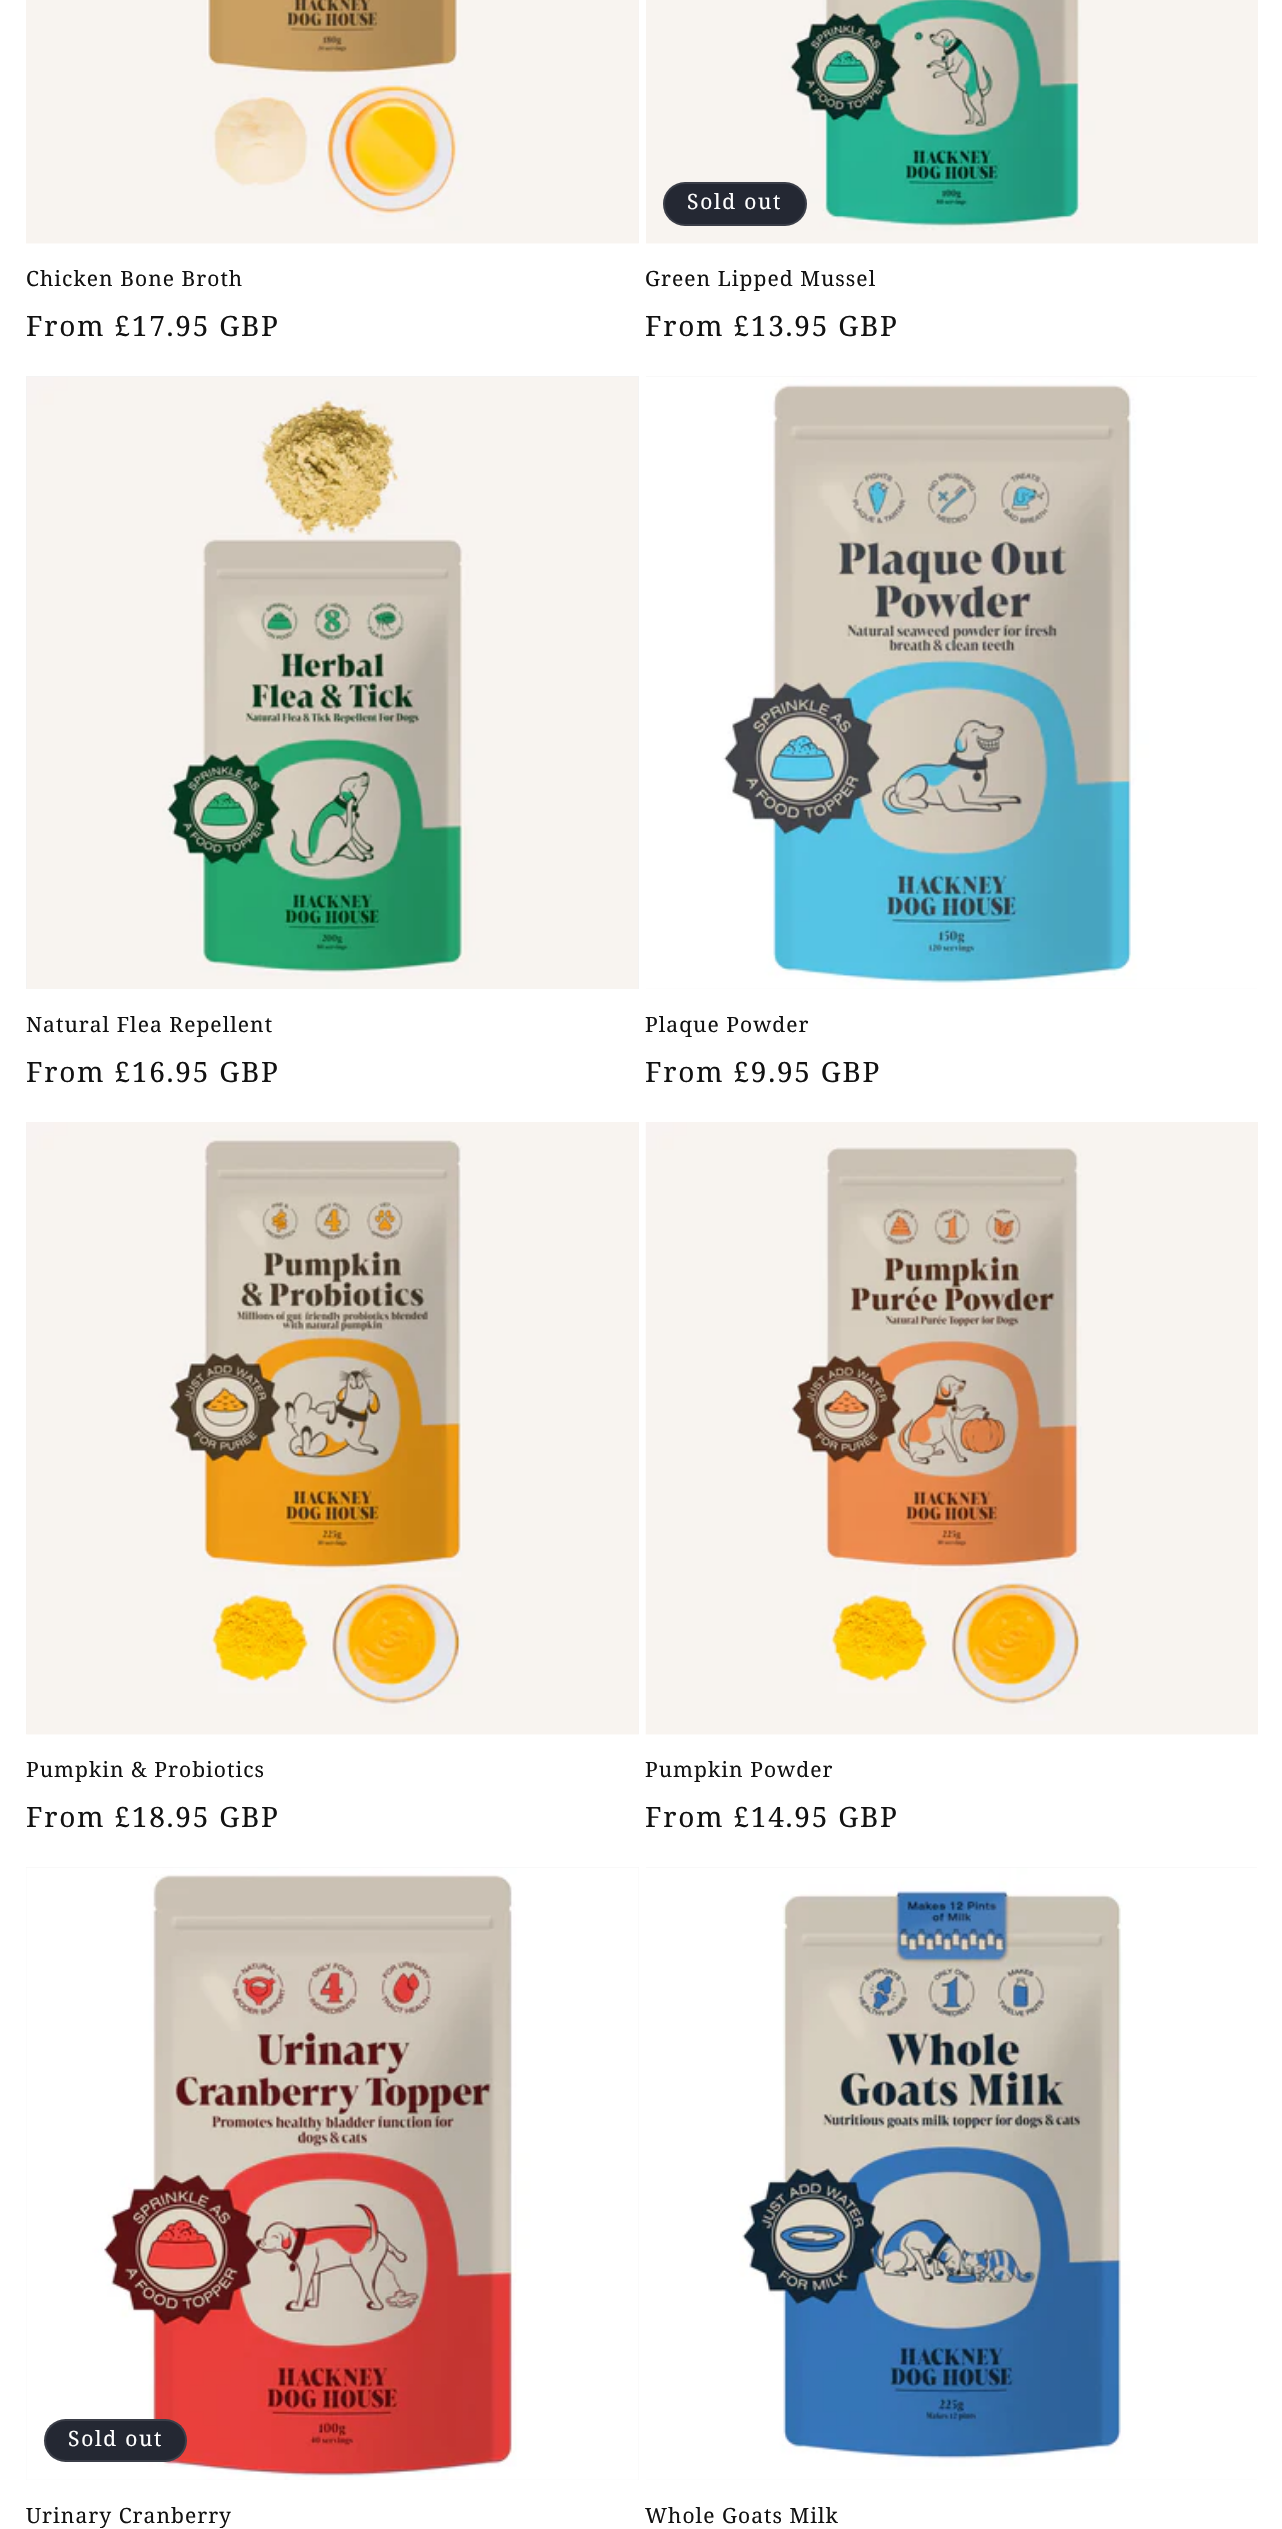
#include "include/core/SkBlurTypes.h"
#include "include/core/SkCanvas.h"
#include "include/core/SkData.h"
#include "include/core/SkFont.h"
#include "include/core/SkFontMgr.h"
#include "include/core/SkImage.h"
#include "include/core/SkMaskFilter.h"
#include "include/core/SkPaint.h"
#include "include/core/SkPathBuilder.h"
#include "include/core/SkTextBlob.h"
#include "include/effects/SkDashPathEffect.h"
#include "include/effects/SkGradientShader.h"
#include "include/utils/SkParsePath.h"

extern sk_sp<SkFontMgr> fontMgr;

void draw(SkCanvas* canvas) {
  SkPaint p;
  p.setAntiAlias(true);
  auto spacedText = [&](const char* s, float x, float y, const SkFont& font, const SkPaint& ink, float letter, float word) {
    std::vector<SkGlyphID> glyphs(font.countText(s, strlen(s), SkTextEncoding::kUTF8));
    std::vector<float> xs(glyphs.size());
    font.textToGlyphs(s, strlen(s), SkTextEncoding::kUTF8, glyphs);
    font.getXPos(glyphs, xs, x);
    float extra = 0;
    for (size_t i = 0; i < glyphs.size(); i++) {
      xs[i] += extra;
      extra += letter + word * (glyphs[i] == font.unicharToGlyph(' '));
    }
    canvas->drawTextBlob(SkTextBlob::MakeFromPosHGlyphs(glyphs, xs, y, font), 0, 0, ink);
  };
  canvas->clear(SK_ColorWHITE);
  p.setColor(SkColorSetRGB(243, 243, 243));
  canvas->drawRect(SkRect::MakeLTRB(638, 0, 639, 243), p);
  canvas->drawImageRect(SkImages::DeferredFromEncodedData(SkData::MakeFromFileName("images/1.png")), SkRect::MakeLTRB(26, 0, 639, 244), SkSamplingOptions());
  canvas->drawImageRect(SkImages::DeferredFromEncodedData(SkData::MakeFromFileName("images/2.png")), SkRect::MakeLTRB(646, 0, 1258, 244), SkSamplingOptions());
  p.setColor(SkColorSetRGB(36, 40, 51));
  canvas->drawRoundRect(SkRect::MakeLTRB(663, 182, 807, 226), 22, 22, p);
  p.setStyle(SkPaint::kStroke_Style);
  p.setStrokeWidth(2);
  p.setColor(SkColorSetARGB(26, 255, 255, 255));
  canvas->drawRoundRect(SkRect::MakeLTRB(664, 183, 806, 225), 21, 21, p);
  p.setStyle(SkPaint::kFill_Style);
  p.setColor(SkColorSetRGB(243, 243, 243));
  canvas->drawRect(SkRect::MakeLTRB(26, 376, 639, 989), p);
  canvas->drawImageRect(SkImages::DeferredFromEncodedData(SkData::MakeFromFileName("images/3.png")), SkRect::MakeLTRB(27, 377, 638, 989), SkSamplingOptions());
  canvas->drawRect(SkRect::MakeLTRB(646, 376, 1257, 989), p);
  canvas->drawImageRect(SkImages::DeferredFromEncodedData(SkData::MakeFromFileName("images/4.png")), SkRect::MakeLTRB(646, 376, 1257, 989), SkSamplingOptions());
  canvas->drawRect(SkRect::MakeLTRB(26, 1122, 639, 1734), p);
  canvas->drawImageRect(SkImages::DeferredFromEncodedData(SkData::MakeFromFileName("images/5.png")), SkRect::MakeLTRB(26, 1122, 639, 1735), SkSamplingOptions());
  canvas->drawImageRect(SkImages::DeferredFromEncodedData(SkData::MakeFromFileName("images/6.png")), SkRect::MakeLTRB(645, 1122, 1258, 1735), SkSamplingOptions());
  canvas->drawRect(SkRect::MakeLTRB(26, 1867, 639, 2480), p);
  canvas->drawImageRect(SkImages::DeferredFromEncodedData(SkData::MakeFromFileName("images/7.png")), SkRect::MakeLTRB(26, 1867, 639, 2480), SkSamplingOptions());
  p.setColor(SkColorSetRGB(36, 40, 51));
  canvas->drawRoundRect(SkRect::MakeLTRB(44, 2419, 187, 2462), 21.5f, 21.5f, p);
  p.setStyle(SkPaint::kStroke_Style);
  p.setColor(SkColorSetARGB(26, 255, 255, 255));
  canvas->drawRoundRect(SkRect::MakeLTRB(45, 2420, 186, 2461), 20.5f, 20.5f, p);
  p.setStyle(SkPaint::kFill_Style);
  p.setColor(SkColorSetRGB(243, 243, 243));
  canvas->drawRect(SkRect::MakeLTRB(646, 1867, 1257, 2480), p);
  canvas->drawImageRect(SkImages::DeferredFromEncodedData(SkData::MakeFromFileName("images/8.png")), SkRect::MakeLTRB(646, 1867, 1257, 2480), SkSamplingOptions());
  SkFont font1(fontMgr->matchFamilyStyle("Noto Serif", SkFontStyle::Normal()), 21);
  font1.setSubpixel(true);
  p.setColor(SkColorSetRGB(18, 18, 18));
  spacedText("Chicken Bone Broth", 26, 286, font1, p, 1.05f, 0);
  SkFont font2(fontMgr->matchFamilyStyle("Noto Serif", SkFontStyle::Normal()), 28);
  font2.setSubpixel(true);
  spacedText("From £17.95 GBP", 26, 336, font2, p, 1.75f, 0);
  p.setColor(SK_ColorWHITE);
  spacedText("Sold out", 687, 209, font1, p, 1.75f, 0);
  p.setColor(SkColorSetRGB(18, 18, 18));
  spacedText("Green Lipped Mussel", 645, 286, font1, p, 1.05f, 0);
  spacedText("From £13.95 GBP", 645, 336, font2, p, 1.75f, 0);
  spacedText("Natural Flea Repellent", 26, 1032, font1, p, 1.05f, 0);
  spacedText("From £16.95 GBP", 26, 1082, font2, p, 1.75f, 0);
  spacedText("Plaque Powder", 645, 1032, font1, p, 1.05f, 0);
  spacedText("From £9.95 GBP", 645, 1082, font2, p, 1.75f, 0);
  spacedText("Pumpkin & Probiotics", 26, 1777, font1, p, 1.05f, 0);
  spacedText("From £18.95 GBP", 26, 1827, font2, p, 1.75f, 0);
  spacedText("Pumpkin Powder", 645, 1777, font1, p, 1.05f, 0);
  spacedText("From £14.95 GBP", 645, 1827, font2, p, 1.75f, 0);
  p.setColor(SK_ColorWHITE);
  spacedText("Sold out", 68, 2446, font1, p, 1.75f, 0);
  p.setColor(SkColorSetRGB(18, 18, 18));
  spacedText("Urinary Cranberry", 26, 2523, font1, p, 1.05f, 0);
  spacedText("Whole Goats Milk", 645, 2523, font1, p, 1.05f, 0);
}
